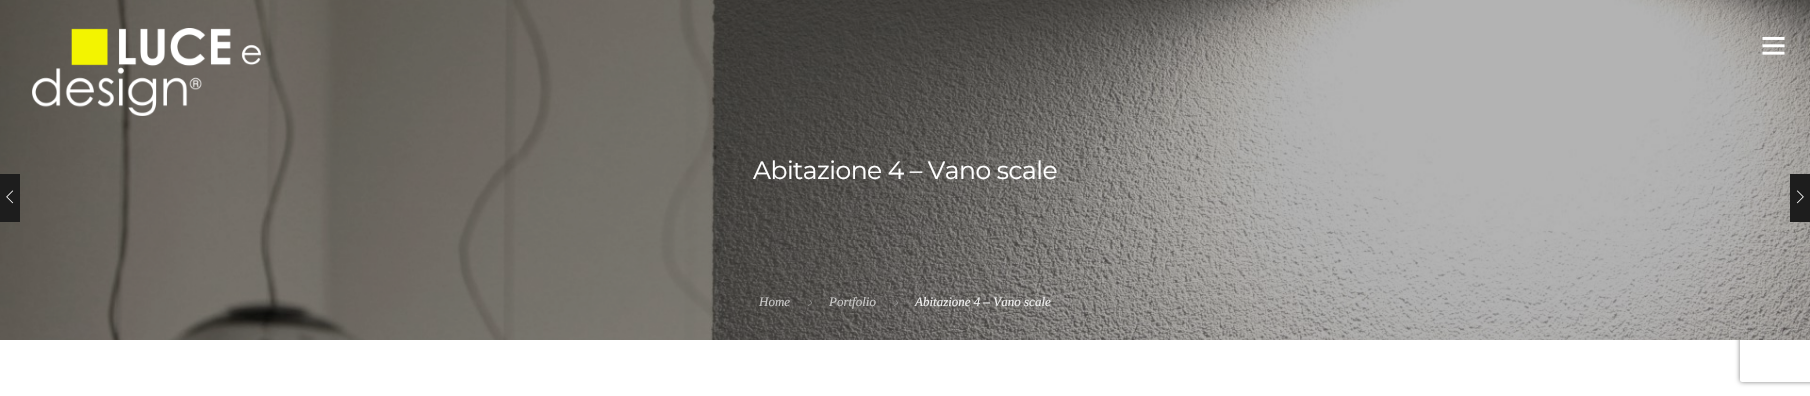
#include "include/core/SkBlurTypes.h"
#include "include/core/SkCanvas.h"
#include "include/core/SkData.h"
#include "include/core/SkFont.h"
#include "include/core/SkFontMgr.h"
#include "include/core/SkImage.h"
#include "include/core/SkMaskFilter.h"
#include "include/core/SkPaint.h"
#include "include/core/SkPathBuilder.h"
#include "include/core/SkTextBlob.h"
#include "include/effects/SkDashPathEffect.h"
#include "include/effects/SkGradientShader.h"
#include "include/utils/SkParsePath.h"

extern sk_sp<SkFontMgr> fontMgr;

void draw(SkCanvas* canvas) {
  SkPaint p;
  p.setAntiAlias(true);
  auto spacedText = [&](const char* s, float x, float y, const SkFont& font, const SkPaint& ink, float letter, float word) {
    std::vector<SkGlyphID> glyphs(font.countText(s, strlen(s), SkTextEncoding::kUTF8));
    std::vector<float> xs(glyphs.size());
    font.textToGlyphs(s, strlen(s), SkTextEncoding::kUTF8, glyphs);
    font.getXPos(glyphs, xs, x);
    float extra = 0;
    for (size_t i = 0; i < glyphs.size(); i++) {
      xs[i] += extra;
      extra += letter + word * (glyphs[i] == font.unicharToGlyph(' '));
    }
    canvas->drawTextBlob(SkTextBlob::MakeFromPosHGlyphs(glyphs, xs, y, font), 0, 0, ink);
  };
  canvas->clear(SK_ColorWHITE);
  canvas->save();
  canvas->clipPath(SkPathBuilder(SkPathFillType::kEvenOdd).moveTo(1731, 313).lineTo(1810, 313).lineTo(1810, 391).lineTo(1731, 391).close().moveTo(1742, 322).lineTo(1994, 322).cubicTo(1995, 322, 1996, 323, 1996, 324).lineTo(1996, 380).cubicTo(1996, 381, 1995, 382, 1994, 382).lineTo(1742, 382).cubicTo(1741, 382, 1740, 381, 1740, 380).lineTo(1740, 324).cubicTo(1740, 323, 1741, 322, 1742, 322).close().detach(), true);
  p.setColor(SkColorSetRGB(128, 128, 128));
  p.setMaskFilter(SkMaskFilter::MakeBlur(kNormal_SkBlurStyle, 2.5f));
  canvas->drawRoundRect(SkRect::MakeLTRB(1740, 322, 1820, 382), 2, 2, p);
  p.setMaskFilter(nullptr);
  canvas->restore();
  canvas->drawImageRect(SkImages::DeferredFromEncodedData(SkData::MakeFromFileName("images/3.png")), SkRect::MakeLTRB(0, 0, 1810, 340), SkSamplingOptions());
  canvas->drawImageRect(SkImages::DeferredFromEncodedData(SkData::MakeFromFileName("images/1.png")), SkRect::MakeLTRB(32, 28, 261, 116), SkSamplingOptions());
  canvas->drawImageRect(SkImages::DeferredFromEncodedData(SkData::MakeFromFileName("images/2.png")), SkRect::MakeLTRB(1762, 36, 1785, 55), SkSamplingOptions());
  canvas->drawImageRect(SkImages::DeferredFromEncodedData(SkData::MakeFromFileName("images/4.png")), SkRect::MakeLTRB(808, 299, 813, 306), SkSamplingOptions());
  canvas->drawImageRect(SkImages::DeferredFromEncodedData(SkData::MakeFromFileName("images/5.png")), SkRect::MakeLTRB(894, 299, 899, 306), SkSamplingOptions());
  p.setColor(SkColorSetRGB(29, 29, 29));
  canvas->drawRect(SkRect::MakeLTRB(0, 174, 20, 222), p);
  canvas->drawImageRect(SkImages::DeferredFromEncodedData(SkData::MakeFromFileName("images/6.png")), SkRect::MakeLTRB(6, 190, 14, 204), SkSamplingOptions());
  canvas->drawRect(SkRect::MakeLTRB(1790, 174, 1810, 222), p);
  canvas->drawImageRect(SkImages::DeferredFromEncodedData(SkData::MakeFromFileName("images/7.png")), SkRect::MakeLTRB(1796, 190, 1804, 204), SkSamplingOptions());
  SkFont font1(fontMgr->matchFamilyStyle("Montserrat", SkFontStyle::Normal()), 25);
  font1.setSubpixel(true);
  p.setColor(SK_ColorWHITE);
  spacedText("Abitazione 4 – Vano scale", 753, 179, font1, p, -0.5f, 0);
  SkFont font2(fontMgr->matchFamilyStyle("Liberation Serif", SkFontStyle::Italic()), 13);
  font2.setSubpixel(true);
  p.setColor(SkColorSetRGB(202, 202, 201));
  canvas->drawString("Home", 759, 306, font2, p);
  canvas->drawString("Portfolio", 829, 306, font2, p);
  p.setColor(SkColorSetRGB(240, 240, 240));
  canvas->drawString("Abitazione 4 – Vano scale", 915, 306, font2, p);
}
